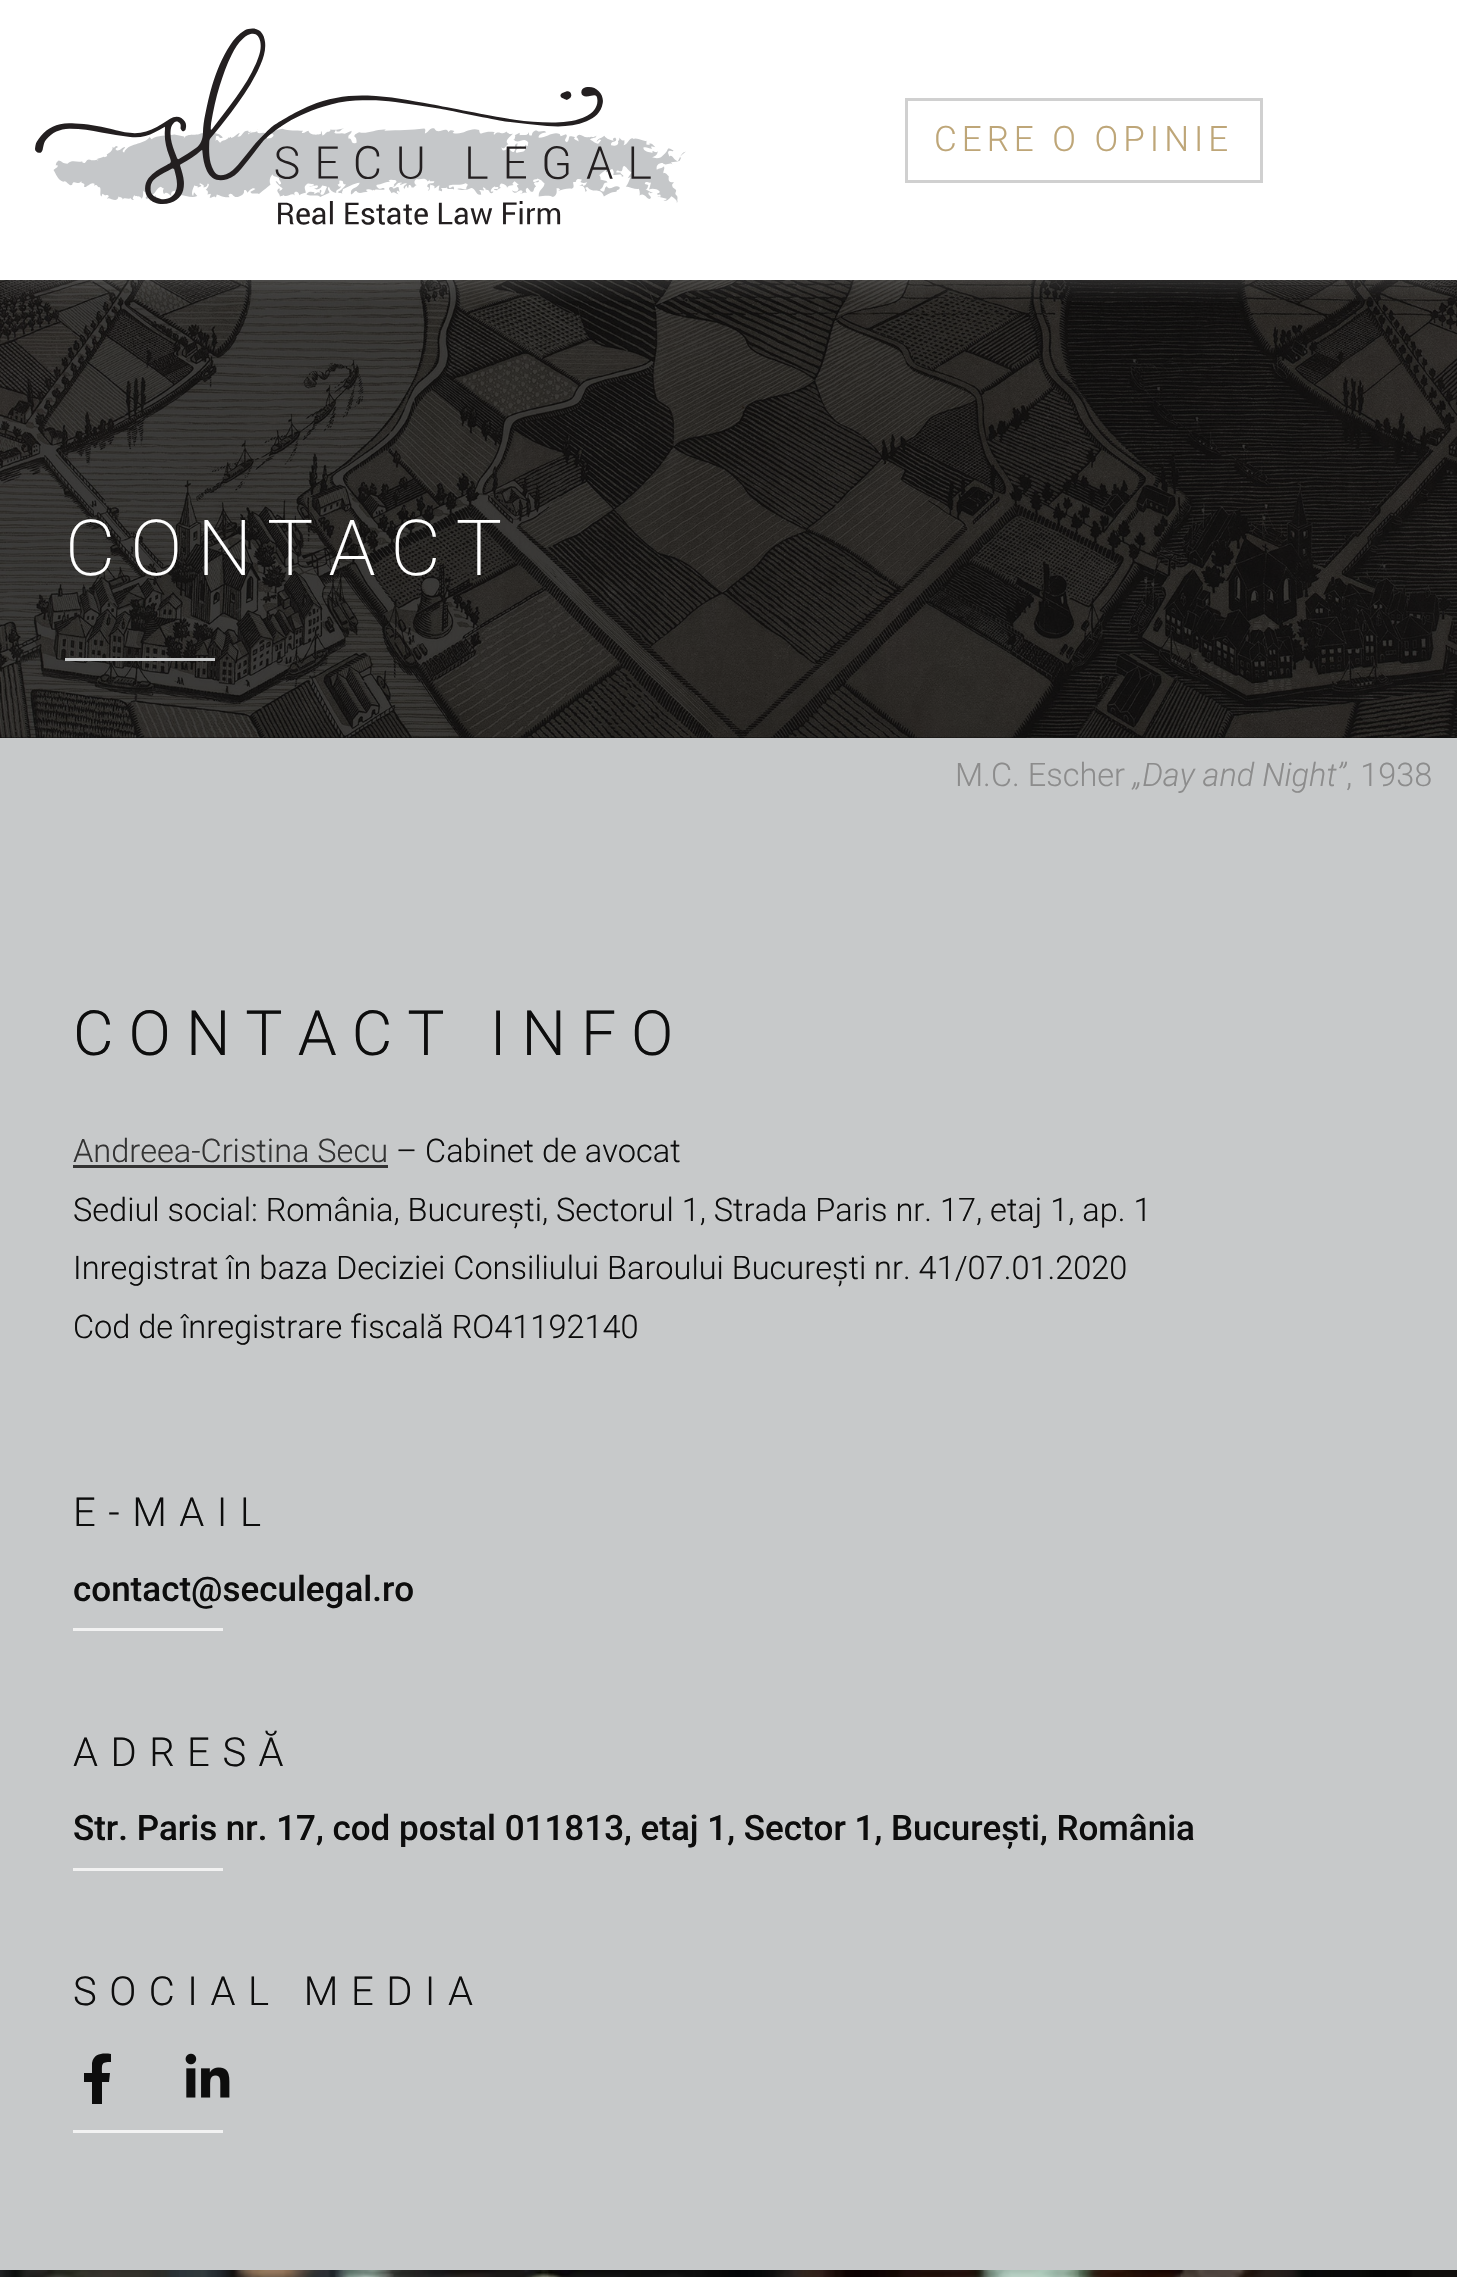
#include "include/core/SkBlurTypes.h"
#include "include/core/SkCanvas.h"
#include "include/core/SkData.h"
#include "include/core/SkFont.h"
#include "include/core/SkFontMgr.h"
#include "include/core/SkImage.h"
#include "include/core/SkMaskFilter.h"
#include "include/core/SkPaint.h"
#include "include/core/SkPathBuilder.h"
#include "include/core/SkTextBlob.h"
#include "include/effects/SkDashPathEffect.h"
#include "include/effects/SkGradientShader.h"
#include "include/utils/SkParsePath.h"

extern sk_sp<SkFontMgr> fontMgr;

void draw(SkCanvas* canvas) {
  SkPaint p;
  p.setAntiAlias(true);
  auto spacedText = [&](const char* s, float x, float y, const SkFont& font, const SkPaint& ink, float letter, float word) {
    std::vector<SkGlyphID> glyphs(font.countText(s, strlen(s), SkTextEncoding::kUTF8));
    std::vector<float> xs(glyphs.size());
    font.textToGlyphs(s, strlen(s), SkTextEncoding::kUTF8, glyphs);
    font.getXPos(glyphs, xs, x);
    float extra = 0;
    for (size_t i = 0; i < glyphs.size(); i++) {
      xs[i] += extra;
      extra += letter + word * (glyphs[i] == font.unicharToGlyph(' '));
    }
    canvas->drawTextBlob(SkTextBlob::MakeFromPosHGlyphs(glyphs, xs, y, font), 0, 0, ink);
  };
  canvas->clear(SK_ColorWHITE);
  p.setColor(SkColorSetRGB(13, 13, 13));
  canvas->drawRect(SkRect::MakeLTRB(0, 737, 1457, 738), p);
  canvas->drawImageRect(SkImages::DeferredFromEncodedData(SkData::MakeFromFileName("images/2.png")), SkRect::MakeLTRB(0, 280, 1457, 738), SkSamplingOptions());
  canvas->save();
  canvas->clipRect(SkRect::MakeLTRB(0, 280, 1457, 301));
  p.setColor(SkColorSetARGB(105, 140, 140, 140));
  p.setMaskFilter(SkMaskFilter::MakeBlur(kNormal_SkBlurStyle, 12.5f));
  canvas->drawRect(SkRect::MakeLTRB(0, 0, 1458, 280), p);
  p.setMaskFilter(nullptr);
  canvas->restore();
  canvas->drawImageRect(SkImages::DeferredFromEncodedData(SkData::MakeFromFileName("images/1.png")), SkRect::MakeLTRB(35, 28, 686, 225), SkSamplingOptions());
  p.setStyle(SkPaint::kStroke_Style);
  p.setStrokeWidth(3);
  p.setColor(SkColorSetRGB(208, 208, 208));
  canvas->drawRect(SkRect::MakeLTRB(906.5f, 99.5f, 1261.5f, 181.5f), p);
  p.setStyle(SkPaint::kFill_Style);
  p.setColor(SkColorSetRGB(199, 201, 202));
  canvas->drawRect(SkRect::MakeLTRB(65, 658, 215, 661), p);
  canvas->drawRect(SkRect::MakeLTRB(0, 738, 1457, 2270), p);
  p.setColor(SkColorSetRGB(51, 51, 51));
  canvas->drawRect(SkRect::MakeLTRB(73, 1165, 388, 1168), p);
  p.setColor(SkColorSetRGB(242, 242, 242));
  canvas->drawRect(SkRect::MakeLTRB(73, 1628, 223, 1631), p);
  canvas->drawRect(SkRect::MakeLTRB(73, 1868, 223, 1871), p);
  p.setColor(SkColorSetRGB(13, 13, 13));
  canvas->drawPath(SkPathBuilder().moveTo(109, 2082).lineTo(102, 2082).lineTo(102, 2104).lineTo(92, 2104).lineTo(92, 2082).lineTo(84, 2082).lineTo(84, 2073).lineTo(92, 2073).lineTo(92, 2063).cubicTo(94, 2053, 103, 2053, 111, 2054).lineTo(111, 2062).cubicTo(101, 2062, 102, 2064, 102, 2073).lineTo(110, 2073).close().detach(), p);
  canvas->drawImageRect(SkImages::DeferredFromEncodedData(SkData::MakeFromFileName("images/3.png")), SkRect::MakeLTRB(185, 2053, 230, 2098), SkSamplingOptions());
  p.setColor(SkColorSetRGB(242, 242, 242));
  canvas->drawRect(SkRect::MakeLTRB(73, 2130, 223, 2133), p);
  canvas->drawImageRect(SkImages::DeferredFromEncodedData(SkData::MakeFromFileName("images/4.png")), SkRect::MakeLTRB(0, 2270, 1457, 2277), SkSamplingOptions());
  SkFont font1(fontMgr->matchFamilyStyle("Roboto", SkFontStyle(300, SkFontStyle::kNormal_Width, SkFontStyle::kUpright_Slant)), 35);
  font1.setSubpixel(true);
  p.setColor(SkColorSetRGB(190, 166, 120));
  spacedText("CERE O OPINIE", 934, 151, font1, p, 5, 0);
  SkFont font2(fontMgr->matchFamilyStyle("Roboto", SkFontStyle(200, SkFontStyle::kNormal_Width, SkFontStyle::kUpright_Slant)), 77.5f);
  font2.setSubpixel(true);
  p.setColor(SK_ColorWHITE);
  spacedText("CONTACT", 65, 575, font2, p, 15, 0);
  SkFont font3(fontMgr->matchFamilyStyle("Roboto", SkFontStyle(300, SkFontStyle::kNormal_Width, SkFontStyle::kUpright_Slant)), 32.5f);
  font3.setSubpixel(true);
  p.setColor(SkColorSetRGB(140, 140, 140));
  canvas->drawString("M.C. Escher", 955, 786, font3, p);
  SkFont font4(fontMgr->matchFamilyStyle("Roboto", SkFontStyle(300, SkFontStyle::kNormal_Width, SkFontStyle::kItalic_Slant)), 32.5f);
  font4.setSubpixel(true);
  canvas->drawString("„Day and Night”", 1133, 786, font4, p);
  canvas->drawString(", 1938", 1346, 786, font3, p);
  SkFont font5(fontMgr->matchFamilyStyle("Roboto", SkFontStyle(300, SkFontStyle::kNormal_Width, SkFontStyle::kUpright_Slant)), 62.5f);
  font5.setSubpixel(true);
  p.setColor(SkColorSetRGB(13, 13, 13));
  spacedText("CONTACT INFO", 73, 1055, font5, p, 15, 0);
  p.setColor(SkColorSetRGB(51, 51, 51));
  canvas->drawString("Andreea-Cristina Secu", 73, 1162, font3, p);
  p.setColor(SkColorSetRGB(13, 13, 13));
  canvas->drawString("– Cabinet de avocat", 396, 1162, font3, p);
  canvas->drawString("Sediul social: România, București, Sectorul 1, Strada Paris nr. 17, etaj 1, ap. 1", 73, 1221, font3, p);
  canvas->drawString("Inregistrat în baza Deciziei Consiliului Baroului București nr. 41/07.01.2020", 73, 1279, font3, p);
  canvas->drawString("Cod de înregistrare fiscală RO41192140", 73, 1338, font3, p);
  SkFont font6(fontMgr->matchFamilyStyle("Roboto", SkFontStyle(300, SkFontStyle::kNormal_Width, SkFontStyle::kUpright_Slant)), 40);
  font6.setSubpixel(true);
  spacedText("E-MAIL", 73, 1526, font6, p, 12.5f, 0);
  SkFont font7(fontMgr->matchFamilyStyle("Roboto", SkFontStyle(500, SkFontStyle::kNormal_Width, SkFontStyle::kUpright_Slant)), 35);
  font7.setSubpixel(true);
  canvas->drawString("contact@seculegal.ro", 73, 1601, font7, p);
  spacedText("ADRESĂ", 73, 1766, font6, p, 12.5f, 0);
  canvas->drawString("Str. Paris nr. 17, cod postal 011813, etaj 1, Sector 1, București, România", 73, 1840, font7, p);
  spacedText("SOCIAL MEDIA", 73, 2005, font6, p, 12.5f, 0);
}
